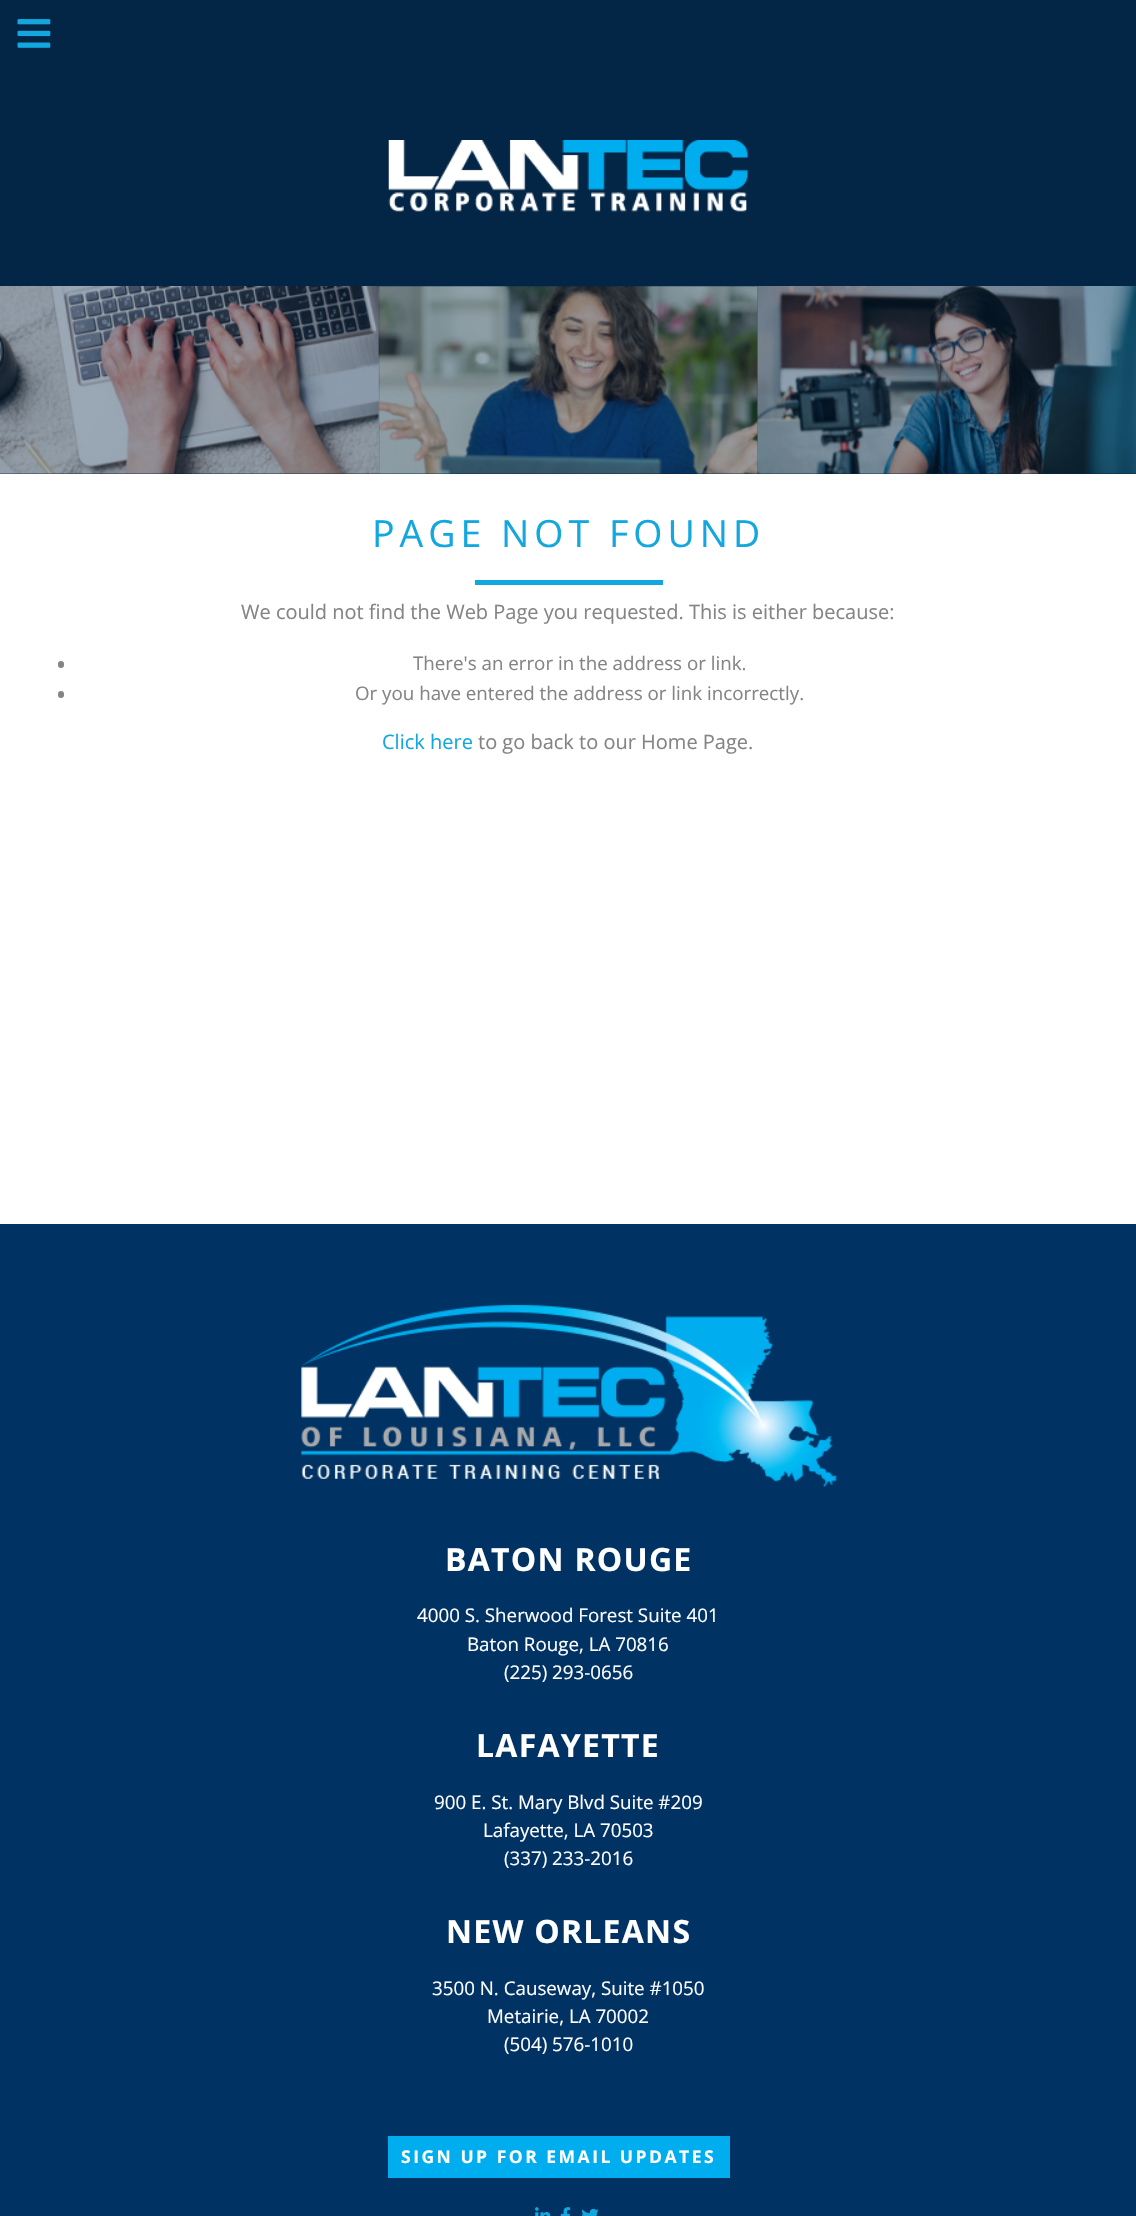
#include "include/core/SkBlurTypes.h"
#include "include/core/SkCanvas.h"
#include "include/core/SkData.h"
#include "include/core/SkFont.h"
#include "include/core/SkFontMgr.h"
#include "include/core/SkImage.h"
#include "include/core/SkMaskFilter.h"
#include "include/core/SkPaint.h"
#include "include/core/SkPathBuilder.h"
#include "include/core/SkTextBlob.h"
#include "include/effects/SkDashPathEffect.h"
#include "include/effects/SkGradientShader.h"
#include "include/utils/SkParsePath.h"

extern sk_sp<SkFontMgr> fontMgr;

void draw(SkCanvas* canvas) {
  SkPaint p;
  p.setAntiAlias(true);
  auto spacedText = [&](const char* s, float x, float y, const SkFont& font, const SkPaint& ink, float letter, float word) {
    std::vector<SkGlyphID> glyphs(font.countText(s, strlen(s), SkTextEncoding::kUTF8));
    std::vector<float> xs(glyphs.size());
    font.textToGlyphs(s, strlen(s), SkTextEncoding::kUTF8, glyphs);
    font.getXPos(glyphs, xs, x);
    float extra = 0;
    for (size_t i = 0; i < glyphs.size(); i++) {
      xs[i] += extra;
      extra += letter + word * (glyphs[i] == font.unicharToGlyph(' '));
    }
    canvas->drawTextBlob(SkTextBlob::MakeFromPosHGlyphs(glyphs, xs, y, font), 0, 0, ink);
  };
  canvas->clear(SkColorSetRGB(3, 37, 70));
  canvas->drawImageRect(SkImages::DeferredFromEncodedData(SkData::MakeFromFileName("images/1.png")), SkRect::MakeLTRB(17, 19, 51, 48), SkSamplingOptions());
  canvas->drawImageRect(SkImages::DeferredFromEncodedData(SkData::MakeFromFileName("images/2.png")), SkRect::MakeLTRB(388, 140, 748, 212), SkSamplingOptions());
  canvas->drawImageRect(SkImages::DeferredFromEncodedData(SkData::MakeFromFileName("images/3.png")), SkRect::MakeLTRB(0, 286, 379, 474), SkSamplingOptions());
  canvas->drawImageRect(SkImages::DeferredFromEncodedData(SkData::MakeFromFileName("images/4.png")), SkRect::MakeLTRB(378, 286, 758, 474), SkSamplingOptions());
  canvas->drawImageRect(SkImages::DeferredFromEncodedData(SkData::MakeFromFileName("images/5.png")), SkRect::MakeLTRB(757, 286, 1136, 474), SkSamplingOptions());
  p.setColor(SK_ColorWHITE);
  canvas->drawRect(SkRect::MakeLTRB(0, 474, 1136, 1224), p);
  p.setColor(SkColorSetRGB(18, 167, 222));
  canvas->drawRect(SkRect::MakeLTRB(475, 580, 663, 585), p);
  p.setColor(SkColorSetRGB(132, 132, 132));
  canvas->drawRoundRect(SkRect::MakeLTRB(58, 661, 64, 668), 3, 3, p);
  canvas->drawRoundRect(SkRect::MakeLTRB(58, 691, 64, 698), 3, 3, p);
  p.setColor(SkColorSetRGB(0, 50, 99));
  canvas->drawRect(SkRect::MakeLTRB(0, 1224, 1136, 2216), p);
  canvas->drawImageRect(SkImages::DeferredFromEncodedData(SkData::MakeFromFileName("images/6.png")), SkRect::MakeLTRB(301, 1304, 837, 1487), SkSamplingOptions());
  p.setColor(SkColorSetRGB(0, 174, 239));
  canvas->drawRect(SkRect::MakeLTRB(388, 2136, 730, 2178), p);
  canvas->drawImageRect(SkImages::DeferredFromEncodedData(SkData::MakeFromFileName("images/7.png")), SkRect::MakeLTRB(535, 2207, 551, 2216), SkSamplingOptions());
  canvas->drawImageRect(SkImages::DeferredFromEncodedData(SkData::MakeFromFileName("images/8.png")), SkRect::MakeLTRB(560, 2207, 571, 2216), SkSamplingOptions());
  canvas->drawImageRect(SkImages::DeferredFromEncodedData(SkData::MakeFromFileName("images/9.png")), SkRect::MakeLTRB(582, 2208, 599, 2216), SkSamplingOptions());
  SkFont font1(fontMgr->matchFamilyStyle("Open Sans", SkFontStyle::Normal()), 37.5f);
  font1.setSubpixel(true);
  p.setColor(SkColorSetRGB(18, 167, 222));
  spacedText("PAGE NOT FOUND", 372, 547, font1, p, 5, 0);
  SkFont font2(fontMgr->matchFamilyStyle("Open Sans", SkFontStyle::Normal()), 20);
  font2.setSubpixel(true);
  p.setColor(SkColorSetRGB(132, 132, 132));
  canvas->drawString("We could not find the Web Page you requested. This is either because:", 241, 619, font2, p);
  SkFont font3(fontMgr->matchFamilyStyle("Open Sans", SkFontStyle::Normal()), 18.75f);
  font3.setSubpixel(true);
  canvas->drawString("There's an error in the address or link.", 413, 670, font3, p);
  canvas->drawString("Or you have entered the address or link incorrectly.", 355, 700, font3, p);
  p.setColor(SkColorSetRGB(18, 167, 222));
  canvas->drawString("Click here", 382, 749, font2, p);
  p.setColor(SkColorSetRGB(132, 132, 132));
  canvas->drawString("to go back to our Home Page.", 478, 749, font2, p);
  SkFont font4(fontMgr->matchFamilyStyle("Open Sans", SkFontStyle::Bold()), 32);
  font4.setSubpixel(true);
  p.setColor(SK_ColorWHITE);
  spacedText("BATON ROUGE", 445, 1571, font4, p, 1.25f, 0);
  canvas->drawString("4000 S. Sherwood Forest Suite 401", 417, 1622, font3, p);
  canvas->drawString("Baton Rouge, LA 70816", 467, 1651, font3, p);
  canvas->drawString("(225) 293-0656", 504, 1679, font3, p);
  spacedText("LAFAYETTE", 476, 1757, font4, p, 1.25f, 0);
  canvas->drawString("900 E. St. Mary Blvd Suite #209", 434, 1809, font3, p);
  canvas->drawString("Lafayette, LA 70503", 483, 1837, font3, p);
  canvas->drawString("(337) 233-2016", 504, 1865, font3, p);
  spacedText("NEW ORLEANS", 446, 1943, font4, p, 1.25f, 0);
  canvas->drawString("3500 N. Causeway, Suite #1050", 432, 1995, font3, p);
  canvas->drawString("Metairie, LA 70002", 487, 2023, font3, p);
  canvas->drawString("(504) 576-1010", 504, 2051, font3, p);
  SkFont font5(fontMgr->matchFamilyStyle("Open Sans", SkFontStyle::Bold()), 17.5f);
  font5.setSubpixel(true);
  spacedText("SIGN UP FOR EMAIL UPDATES", 401, 2163, font5, p, 2.5f, 0);
}
